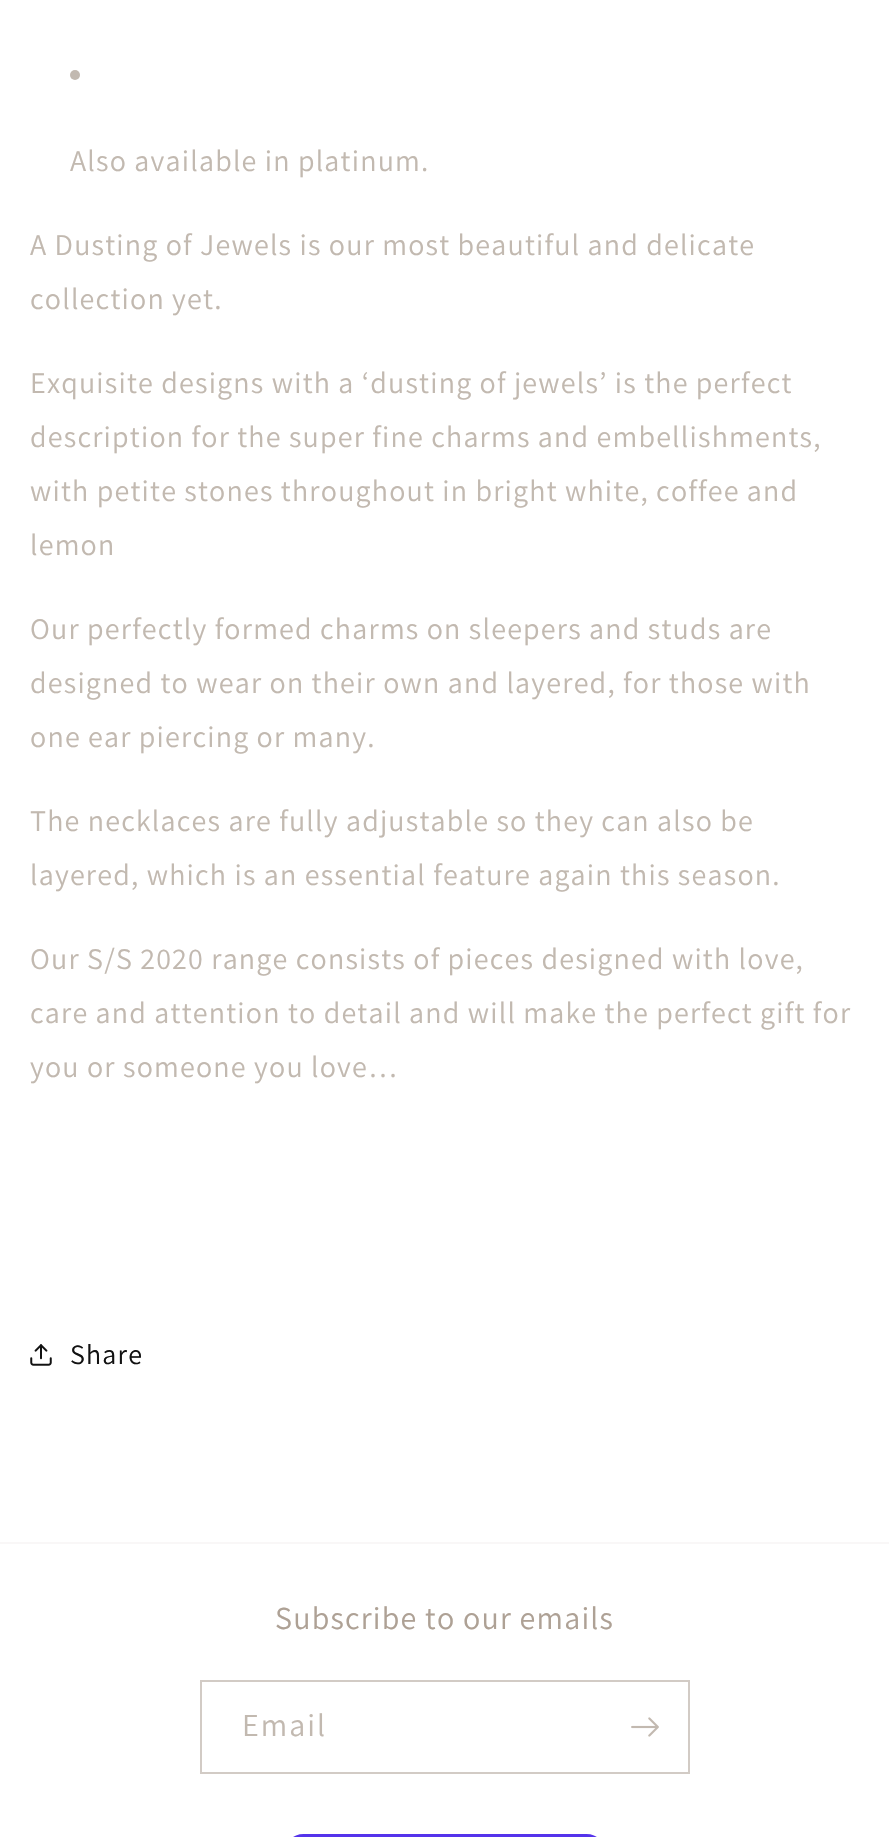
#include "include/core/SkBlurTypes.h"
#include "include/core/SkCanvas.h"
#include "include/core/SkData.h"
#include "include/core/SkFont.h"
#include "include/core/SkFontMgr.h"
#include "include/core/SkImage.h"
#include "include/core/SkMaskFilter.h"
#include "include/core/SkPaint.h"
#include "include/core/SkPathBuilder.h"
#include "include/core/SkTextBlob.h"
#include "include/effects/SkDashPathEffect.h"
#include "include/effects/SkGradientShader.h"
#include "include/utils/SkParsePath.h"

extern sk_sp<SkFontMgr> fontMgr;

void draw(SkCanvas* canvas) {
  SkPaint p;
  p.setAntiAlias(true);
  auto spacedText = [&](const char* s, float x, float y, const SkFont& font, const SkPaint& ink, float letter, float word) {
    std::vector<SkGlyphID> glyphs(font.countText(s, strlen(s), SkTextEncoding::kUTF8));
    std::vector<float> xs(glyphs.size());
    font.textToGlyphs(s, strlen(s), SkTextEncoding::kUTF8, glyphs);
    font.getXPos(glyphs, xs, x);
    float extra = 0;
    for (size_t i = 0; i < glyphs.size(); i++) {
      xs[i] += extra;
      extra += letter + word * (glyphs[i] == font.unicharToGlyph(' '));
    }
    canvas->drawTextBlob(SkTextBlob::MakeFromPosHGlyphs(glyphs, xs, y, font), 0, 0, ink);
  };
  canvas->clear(SK_ColorWHITE);
  p.setColor(SkColorSetRGB(194, 185, 176));
  canvas->drawCircle(75, 75, 5, p);
  canvas->drawImageRect(SkImages::DeferredFromEncodedData(SkData::MakeFromFileName("images/1.png")), SkRect::MakeLTRB(30, 1344, 52, 1366), SkSamplingOptions());
  p.setColor(SkColorSetRGB(249, 247, 247));
  canvas->drawRect(SkRect::MakeLTRB(0, 1542, 889, 1544), p);
  p.setStyle(SkPaint::kStroke_Style);
  p.setStrokeWidth(2);
  p.setColor(SkColorSetRGB(210, 203, 197));
  canvas->drawRect(SkRect::MakeLTRB(201, 1681, 689, 1773), p);
  canvas->drawImageRect(SkImages::DeferredFromEncodedData(SkData::MakeFromFileName("images/2.png")), SkRect::MakeLTRB(631, 1717, 659, 1737), SkSamplingOptions());
  p.setStyle(SkPaint::kFill_Style);
  p.setColor(SkColorSetRGB(84, 51, 235));
  canvas->drawRoundRect(SkRect::MakeLTRB(284, 1834, 606, 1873), 36, 36, p);
  SkFont font1(fontMgr->matchFamilyStyle("Assistant", SkFontStyle::Normal()), 30);
  font1.setSubpixel(true);
  p.setColor(SkColorSetRGB(194, 185, 176));
  spacedText("Also available in platinum.", 70, 171, font1, p, 1.2f, 0);
  spacedText("A Dusting of Jewels is our most beautiful and delicate", 30, 255, font1, p, 1.2f, 0);
  spacedText("collection yet.", 30, 309, font1, p, 1.2f, 0);
  spacedText("Exquisite designs with a ‘dusting of jewels’ is the perfect", 30, 393, font1, p, 1.2f, 0);
  spacedText("description for the super fine charms and embellishments,", 30, 447, font1, p, 1.2f, 0);
  spacedText("with petite stones throughout in bright white, coffee and", 30, 501, font1, p, 1.2f, 0);
  spacedText("lemon", 30, 555, font1, p, 1.2f, 0);
  spacedText("Our perfectly formed charms on sleepers and studs are", 30, 639, font1, p, 1.2f, 0);
  spacedText("designed to wear on their own and layered, for those with", 30, 693, font1, p, 1.2f, 0);
  spacedText("one ear piercing or many.", 30, 747, font1, p, 1.2f, 0);
  spacedText("The necklaces are fully adjustable so they can also be", 30, 831, font1, p, 1.2f, 0);
  spacedText("layered, which is an essential feature again this season.", 30, 885, font1, p, 1.2f, 0);
  spacedText("Our S/S 2020 range consists of pieces designed with love,", 30, 969, font1, p, 1.2f, 0);
  spacedText("care and attention to detail and will make the perfect gift for", 30, 1023, font1, p, 1.2f, 0);
  spacedText("you or someone you love…", 30, 1077, font1, p, 1.2f, 0);
  SkFont font2(fontMgr->matchFamilyStyle("Assistant", SkFontStyle::Normal()), 28);
  font2.setSubpixel(true);
  p.setColor(SkColorSetRGB(18, 18, 18));
  spacedText("Share", 70, 1364, font2, p, 1.2f, 0);
  SkFont font3(fontMgr->matchFamilyStyle("Assistant", SkFontStyle::Normal()), 32);
  font3.setSubpixel(true);
  p.setColor(SkColorSetRGB(174, 161, 149));
  spacedText("Subscribe to our emails", 275, 1629, font3, p, 1.2f, 0);
  p.setColor(SkColorSetRGB(194, 185, 176));
  spacedText("Email", 242, 1736, font3, p, 2, 0);
}
